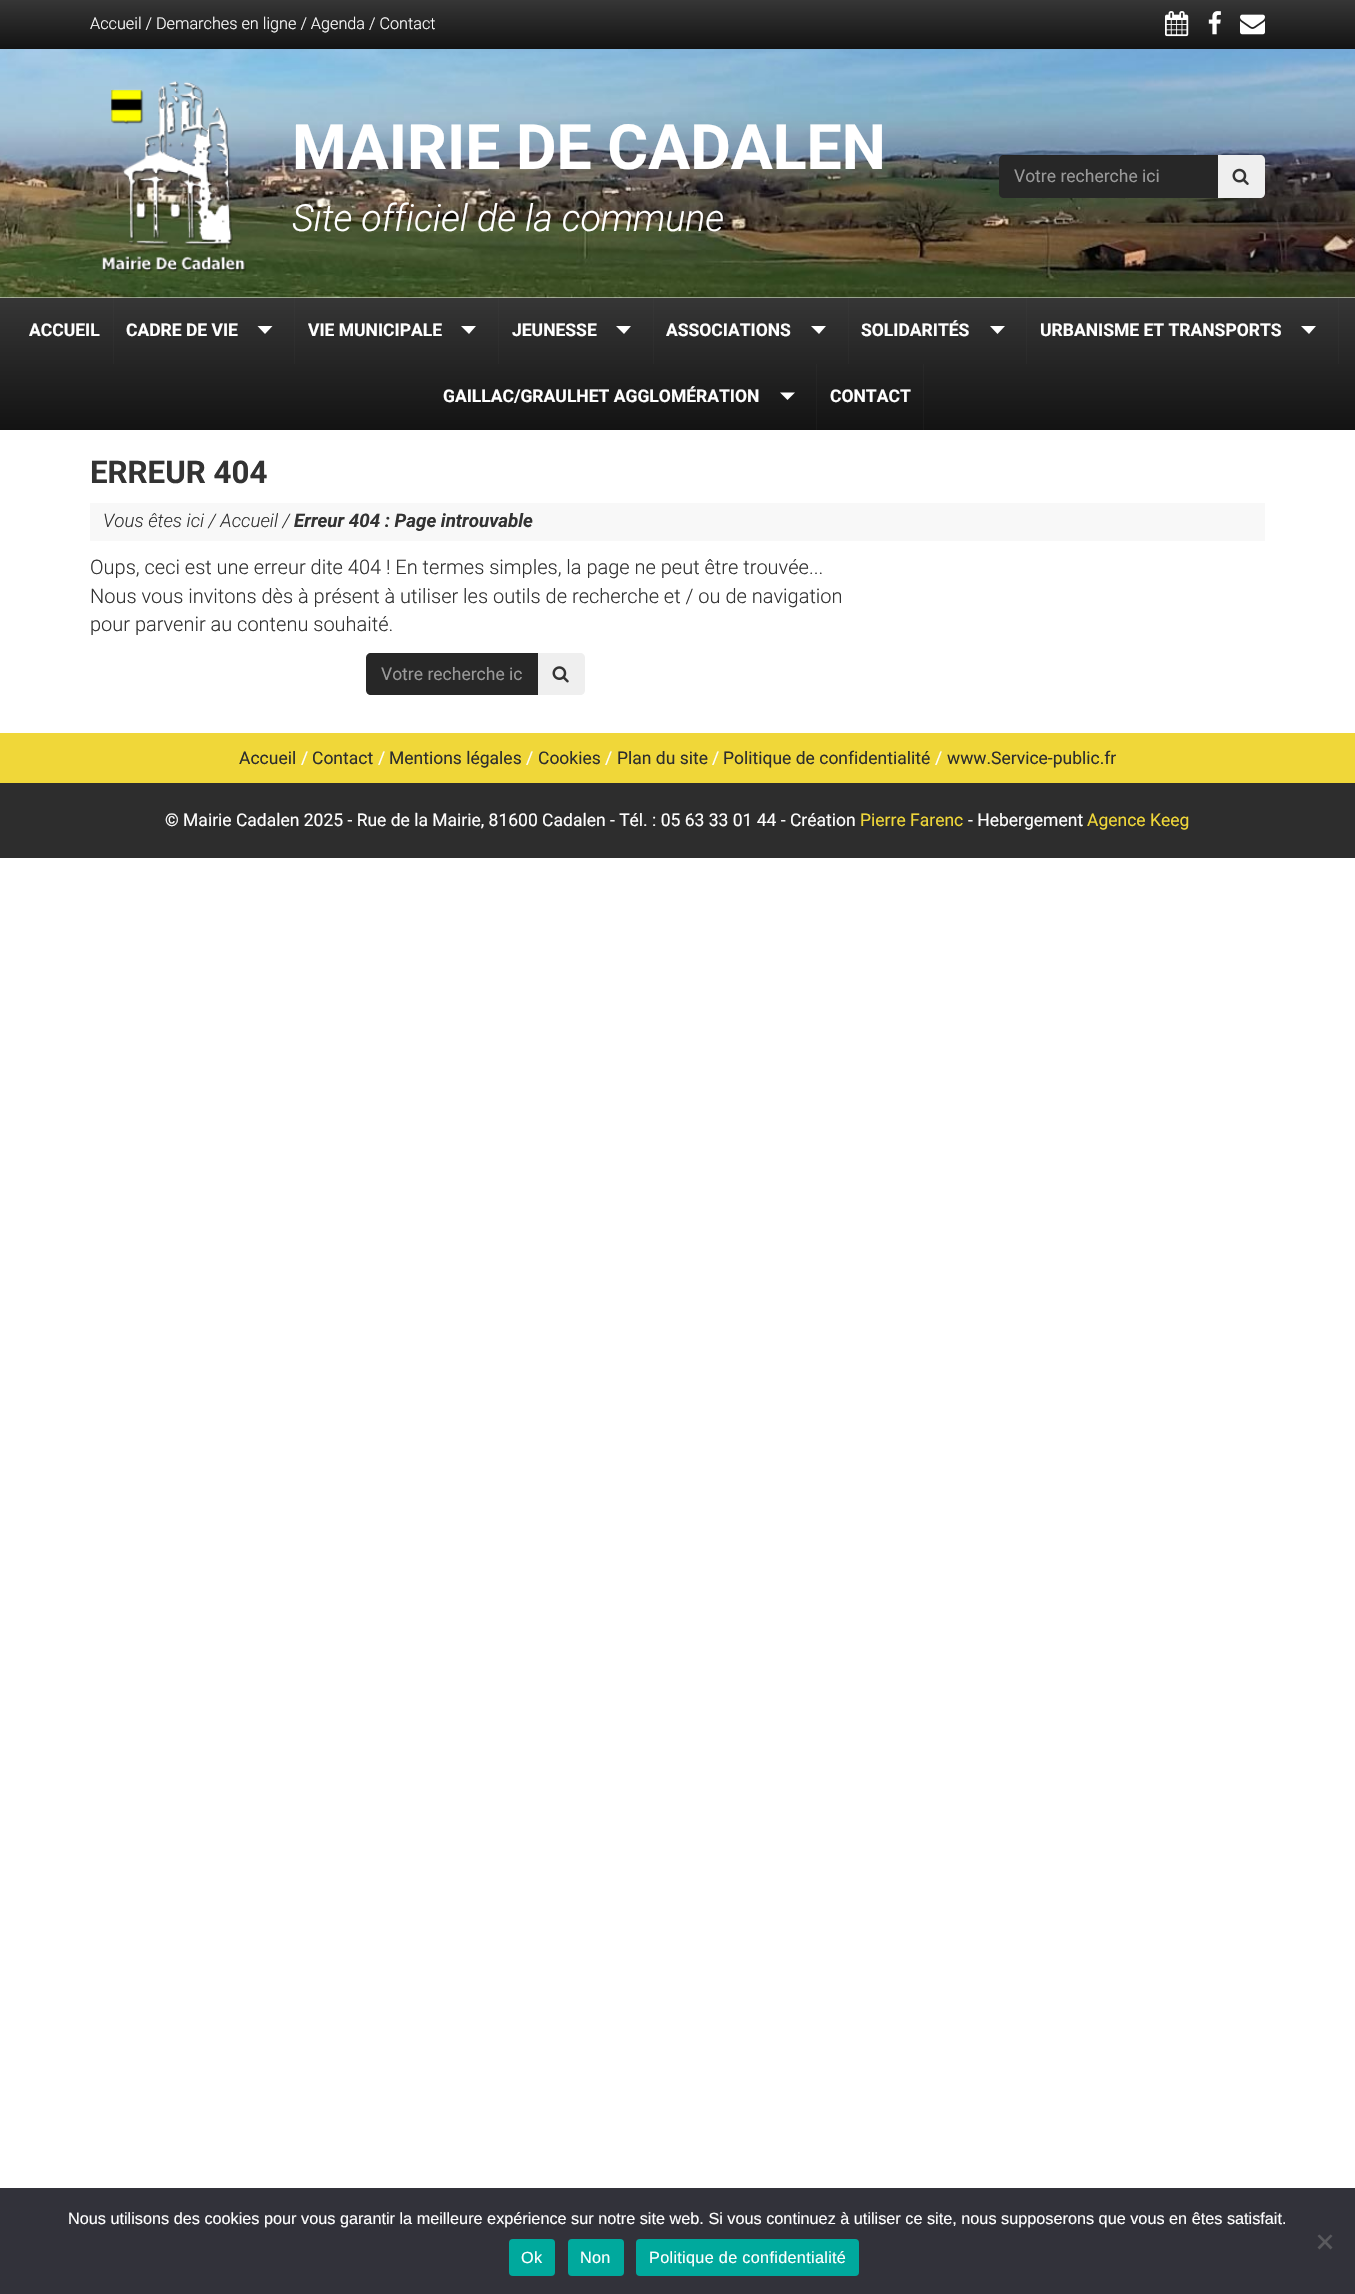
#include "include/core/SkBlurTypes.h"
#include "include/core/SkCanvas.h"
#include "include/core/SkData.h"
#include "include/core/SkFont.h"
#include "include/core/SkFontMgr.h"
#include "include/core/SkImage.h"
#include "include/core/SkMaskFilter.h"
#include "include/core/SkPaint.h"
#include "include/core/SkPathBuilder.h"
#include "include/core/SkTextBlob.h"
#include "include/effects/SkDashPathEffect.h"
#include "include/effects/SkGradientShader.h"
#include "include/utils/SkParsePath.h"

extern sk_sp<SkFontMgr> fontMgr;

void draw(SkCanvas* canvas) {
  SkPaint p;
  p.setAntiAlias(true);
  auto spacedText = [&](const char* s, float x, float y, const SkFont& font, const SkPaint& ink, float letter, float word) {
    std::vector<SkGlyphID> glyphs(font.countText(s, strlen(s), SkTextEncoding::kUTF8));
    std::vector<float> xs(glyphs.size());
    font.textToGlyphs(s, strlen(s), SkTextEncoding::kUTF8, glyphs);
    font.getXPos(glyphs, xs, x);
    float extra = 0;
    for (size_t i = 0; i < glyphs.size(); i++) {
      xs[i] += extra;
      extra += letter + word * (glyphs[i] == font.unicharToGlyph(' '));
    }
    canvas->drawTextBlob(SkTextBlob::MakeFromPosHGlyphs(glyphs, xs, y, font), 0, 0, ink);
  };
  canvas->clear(SK_ColorWHITE);
  canvas->drawImageRect(SkImages::DeferredFromEncodedData(SkData::MakeFromFileName("images/1.png")), SkRect::MakeLTRB(0, 49, 1355, 298), SkSamplingOptions());
  {
    const SkColor colors[] = {SkColorSetRGB(54, 54, 54), SkColorSetRGB(19, 19, 19)};
    const float stops[] = {0, 1};
    const SkPoint ends[] = {{678, 0}, {678, 49}};
    p.setShader(SkGradientShader::MakeLinear(ends, colors, stops, 2, SkTileMode::kClamp));
    p.setAlpha(255);
  }
  canvas->drawRect(SkRect::MakeLTRB(0, 0, 1355, 49), p);
  canvas->drawImageRect(SkImages::DeferredFromEncodedData(SkData::MakeFromFileName("images/2.png")), SkRect::MakeLTRB(1165, 11, 1189, 37), SkSamplingOptions());
  canvas->drawImageRect(SkImages::DeferredFromEncodedData(SkData::MakeFromFileName("images/3.png")), SkRect::MakeLTRB(1208, 11, 1221, 35), SkSamplingOptions());
  canvas->drawImageRect(SkImages::DeferredFromEncodedData(SkData::MakeFromFileName("images/4.png")), SkRect::MakeLTRB(1240, 14, 1265, 35), SkSamplingOptions());
  canvas->drawImageRect(SkImages::DeferredFromEncodedData(SkData::MakeFromFileName("images/5.png")), SkRect::MakeLTRB(101, 80, 246, 272), SkSamplingOptions());
  p.setShader(nullptr);
  p.setColor(SkColorSetRGB(239, 239, 239));
  canvas->drawPath(SkPathBuilder().moveTo(1216, 155).lineTo(1260, 155).cubicTo(1263, 155, 1265, 157, 1265, 160).lineTo(1265, 193).cubicTo(1265, 196, 1263, 198, 1260, 198).lineTo(1216, 198).close().detach(), p);
  p.setColor(SkColorSetRGB(39, 39, 39));
  canvas->drawPath(SkPathBuilder().moveTo(1004, 155).lineTo(1218, 155).lineTo(1218, 198).lineTo(1004, 198).cubicTo(1001, 198, 999, 196, 999, 193).lineTo(999, 160).cubicTo(999, 157, 1001, 155, 1004, 155).close().detach(), p);
  p.setColor(SkColorSetARGB(18, 0, 0, 0));
  canvas->drawPath(SkPathBuilder().moveTo(1004, 156).lineTo(1218, 156).lineTo(1218, 155).lineTo(1004, 155).cubicTo(1001, 155, 999, 158, 999, 161).cubicTo(999, 158, 1001, 156, 1004, 156).close().detach(), p);
  canvas->drawImageRect(SkImages::DeferredFromEncodedData(SkData::MakeFromFileName("images/6.png")), SkRect::MakeLTRB(1232, 168, 1249, 185), SkSamplingOptions());
  {
    const SkColor colors[] = {SkColorSetRGB(54, 54, 54), SkColorSetRGB(19, 19, 19)};
    const float stops[] = {0, 1};
    const SkPoint ends[] = {{678, 297}, {678, 430}};
    p.setShader(SkGradientShader::MakeLinear(ends, colors, stops, 2, SkTileMode::kClamp));
    p.setAlpha(255);
  }
  canvas->drawRect(SkRect::MakeLTRB(0, 298, 1355, 430), p);
  {
    const SkColor colors[] = {SkColorSetRGB(57, 57, 57), SkColorSetRGB(26, 26, 26)};
    const float stops[] = {0, 1};
    const SkPoint ends[] = {{678, 297}, {678, 430}};
    p.setShader(SkGradientShader::MakeLinear(ends, colors, stops, 2, SkTileMode::kClamp));
    p.setAlpha(255);
  }
  canvas->drawRect(SkRect::MakeLTRB(923, 364, 924, 430), p);
  canvas->drawRect(SkRect::MakeLTRB(816, 364, 817, 430), p);
  canvas->drawRect(SkRect::MakeLTRB(1338, 298, 1339, 364), p);
  canvas->drawRect(SkRect::MakeLTRB(1026, 298, 1027, 364), p);
  canvas->drawRect(SkRect::MakeLTRB(848, 298, 849, 364), p);
  canvas->drawRect(SkRect::MakeLTRB(653, 298, 654, 364), p);
  canvas->drawRect(SkRect::MakeLTRB(498, 298, 499, 364), p);
  canvas->drawRect(SkRect::MakeLTRB(294, 298, 295, 364), p);
  canvas->drawRect(SkRect::MakeLTRB(113, 298, 114, 364), p);
  p.setShader(nullptr);
  p.setColor(SK_ColorWHITE);
  canvas->drawPath(SkPathBuilder().moveTo(257.5f, 326).lineTo(272.5f, 326).lineTo(265, 334).close().detach(), p);
  canvas->drawPath(SkPathBuilder().moveTo(461, 326).lineTo(476, 326).lineTo(469, 334).close().detach(), p);
  canvas->drawPath(SkPathBuilder().moveTo(616, 326).lineTo(631, 326).lineTo(624, 334).close().detach(), p);
  canvas->drawPath(SkPathBuilder().moveTo(811, 326).lineTo(826, 326).lineTo(819, 334).close().detach(), p);
  canvas->drawPath(SkPathBuilder().moveTo(990, 326).lineTo(1005, 326).lineTo(997.5f, 334).close().detach(), p);
  canvas->drawPath(SkPathBuilder().moveTo(1301, 326).lineTo(1316, 326).lineTo(1309, 334).close().detach(), p);
  canvas->drawPath(SkPathBuilder().moveTo(780, 392.5f).lineTo(795, 392.5f).lineTo(787.5f, 400).close().detach(), p);
  p.setColor(SkColorSetRGB(248, 248, 248));
  canvas->drawRect(SkRect::MakeLTRB(90, 503, 1265, 541), p);
  p.setColor(SkColorSetRGB(239, 239, 239));
  canvas->drawPath(SkPathBuilder().moveTo(536, 653).lineTo(580, 653).cubicTo(583, 653, 585, 655, 585, 658).lineTo(585, 690).cubicTo(585, 693, 583, 695, 580, 695).lineTo(536, 695).close().detach(), p);
  p.setColor(SkColorSetRGB(39, 39, 39));
  canvas->drawPath(SkPathBuilder().moveTo(371, 653).lineTo(538, 653).lineTo(538, 695).lineTo(371, 695).cubicTo(368, 695, 366, 693, 366, 690).lineTo(366, 658).cubicTo(366, 655, 368, 653, 371, 653).close().detach(), p);
  p.setColor(SkColorSetARGB(18, 0, 0, 0));
  canvas->drawPath(SkPathBuilder().moveTo(371, 654).lineTo(538, 654).lineTo(538, 653).lineTo(371, 653).cubicTo(368, 653, 366, 655, 366, 658).lineTo(366, 659).cubicTo(366, 656, 368, 654, 371, 654).close().detach(), p);
  canvas->drawImageRect(SkImages::DeferredFromEncodedData(SkData::MakeFromFileName("images/7.png")), SkRect::MakeLTRB(552, 666, 569, 683), SkSamplingOptions());
  p.setColor(SkColorSetRGB(240, 215, 57));
  canvas->drawRect(SkRect::MakeLTRB(0, 733, 1355, 783), p);
  p.setColor(SkColorSetRGB(45, 45, 45));
  canvas->drawRect(SkRect::MakeLTRB(0, 783, 1355, 858), p);
  p.setColor(SkColorSetRGB(50, 50, 58));
  canvas->drawRect(SkRect::MakeLTRB(0, 2188, 1355, 2294), p);
  p.setColor(SkColorSetRGB(89, 89, 93));
  canvas->drawPath(SkPathBuilder().moveTo(1330.5f, 2234.5f).lineTo(1332.5f, 2236).lineTo(1319.5f, 2249.5f).lineTo(1317.5f, 2247.5f).close().detach(), p);
  canvas->drawPath(SkPathBuilder().moveTo(1317.5f, 2236).lineTo(1319.5f, 2234.5f).lineTo(1332.5f, 2247.5f).lineTo(1330.5f, 2249.5f).close().detach(), p);
  p.setColor(SkColorSetRGB(0, 169, 157));
  canvas->drawRoundRect(SkRect::MakeLTRB(509, 2239, 555, 2276), 4, 4, p);
  canvas->drawRoundRect(SkRect::MakeLTRB(568, 2239, 624, 2276), 4, 4, p);
  canvas->drawRoundRect(SkRect::MakeLTRB(636, 2239, 859, 2276), 4, 4, p);
  SkFont font1(fontMgr->matchFamilyStyle("Roboto", SkFontStyle(300, SkFontStyle::kNormal_Width, SkFontStyle::kUpright_Slant)), 16.25f);
  font1.setSubpixel(true);
  p.setColor(SK_ColorWHITE);
  canvas->drawString("Accueil / Demarches en ligne / Agenda / Contact", 90, 29, font1, p);
  SkFont font2(fontMgr->matchFamilyStyle("Roboto", SkFontStyle::Bold()), 62.5f);
  font2.setSubpixel(true);
  canvas->drawString("MAIRIE DE CADALEN", 292, 169, font2, p);
  SkFont font3(fontMgr->matchFamilyStyle("Roboto", SkFontStyle(300, SkFontStyle::kNormal_Width, SkFontStyle::kItalic_Slant)), 37.5f);
  font3.setSubpixel(true);
  canvas->drawString("Site officiel de la commune", 292, 231, font3, p);
  SkFont font4(fontMgr->matchFamilyStyle("Roboto", SkFontStyle::Normal()), 17.5f);
  font4.setSubpixel(true);
  p.setColor(SkColorSetRGB(153, 153, 153));
  canvas->drawString("Votre recherche ici", 1014, 182, font4, p);
  SkFont font5(fontMgr->matchFamilyStyle("Roboto", SkFontStyle::Bold()), 17.5f);
  font5.setSubpixel(true);
  p.setColor(SK_ColorWHITE);
  canvas->drawString("ACCUEIL", 29, 336, font5, p);
  canvas->drawString("CADRE DE VIE", 126, 336, font5, p);
  canvas->drawString("VIE MUNICIPALE", 308, 336, font5, p);
  canvas->drawString("JEUNESSE", 512, 336, font5, p);
  canvas->drawString("ASSOCIATIONS", 666, 336, font5, p);
  canvas->drawString("SOLIDARITÉS", 861, 336, font5, p);
  canvas->drawString("URBANISME ET TRANSPORTS", 1040, 336, font5, p);
  canvas->drawString("GAILLAC/GRAULHET AGGLOMÉRATION", 443, 402, font5, p);
  canvas->drawString("CONTACT", 830, 402, font5, p);
  SkFont font6(fontMgr->matchFamilyStyle("Roboto", SkFontStyle::Bold()), 31.25f);
  font6.setSubpixel(true);
  p.setColor(SkColorSetRGB(51, 51, 51));
  canvas->drawString("ERREUR 404", 90, 483, font6, p);
  SkFont font7(fontMgr->matchFamilyStyle("Roboto", SkFontStyle(300, SkFontStyle::kNormal_Width, SkFontStyle::kItalic_Slant)), 18.75f);
  font7.setSubpixel(true);
  canvas->drawString("Vous êtes ici / Accueil /", 103, 527, font7, p);
  SkFont font8(fontMgr->matchFamilyStyle("Roboto", SkFontStyle::BoldItalic()), 18.75f);
  font8.setSubpixel(true);
  canvas->drawString("Erreur 404 : Page introuvable", 294, 527, font8, p);
  SkFont font9(fontMgr->matchFamilyStyle("Roboto", SkFontStyle(300, SkFontStyle::kNormal_Width, SkFontStyle::kUpright_Slant)), 20);
  font9.setSubpixel(true);
  canvas->drawString("Oups, ceci est une erreur dite 404 ! En termes simples, la page ne peut être trouvée...", 90, 574, font9, p);
  canvas->drawString("Nous vous invitons dès à présent à utiliser les outils de recherche et / ou de navigation", 90, 603, font9, p);
  canvas->drawString("pour parvenir au contenu souhaité.", 90, 631, font9, p);
  p.setColor(SkColorSetRGB(153, 153, 153));
  canvas->drawString("Votre recherche ic", 381, 680, font4, p);
  p.setColor(SkColorSetRGB(45, 45, 45));
  canvas->drawString("Accueil", 239, 764, font4, p);
  p.setColor(SK_ColorWHITE);
  canvas->drawString("/", 301, 764, font4, p);
  p.setColor(SkColorSetRGB(45, 45, 45));
  canvas->drawString("Contact", 312, 764, font4, p);
  p.setColor(SK_ColorWHITE);
  canvas->drawString("/", 378, 764, font4, p);
  p.setColor(SkColorSetRGB(45, 45, 45));
  canvas->drawString("Mentions légales", 389, 764, font4, p);
  p.setColor(SK_ColorWHITE);
  canvas->drawString("/", 526, 764, font4, p);
  p.setColor(SkColorSetRGB(45, 45, 45));
  canvas->drawString("Cookies", 538, 764, font4, p);
  p.setColor(SK_ColorWHITE);
  canvas->drawString("/", 605, 764, font4, p);
  p.setColor(SkColorSetRGB(45, 45, 45));
  canvas->drawString("Plan du site", 617, 764, font4, p);
  p.setColor(SK_ColorWHITE);
  canvas->drawString("/", 712, 764, font4, p);
  p.setColor(SkColorSetRGB(45, 45, 45));
  canvas->drawString("Politique de confidentialité", 723, 764, font4, p);
  p.setColor(SK_ColorWHITE);
  canvas->drawString("/", 935, 764, font4, p);
  p.setColor(SkColorSetRGB(45, 45, 45));
  canvas->drawString("www.Service-public.fr", 947, 764, font4, p);
  p.setColor(SK_ColorWHITE);
  canvas->drawString("© Mairie Cadalen 2025 - Rue de la Mairie, 81600 Cadalen - Tél. : 05 63 33 01 44 - Création", 165, 826, font4, p);
  p.setColor(SkColorSetRGB(240, 215, 57));
  canvas->drawString("Pierre Farenc", 860, 826, font4, p);
  p.setColor(SK_ColorWHITE);
  canvas->drawString("- Hebergement", 968, 826, font4, p);
  p.setColor(SkColorSetRGB(240, 215, 57));
  canvas->drawString("Agence Keeg", 1087, 826, font4, p);
  SkFont font10(fontMgr->matchFamilyStyle("Liberation Sans", SkFontStyle::Normal()), 16.25f);
  font10.setSubpixel(true);
  p.setColor(SK_ColorWHITE);
  canvas->drawString("Nous utilisons des cookies pour vous garantir la meilleure expérience sur notre site web. Si vous continuez à utiliser ce site, nous supposerons que vous en êtes satisfait.", 68, 2224, font10, p);
  spacedText("Ok", 521, 2263, font10, p, 0.3f, 0);
  spacedText("Non", 580, 2263, font10, p, 0.3f, 0);
  spacedText("Politique de confidentialité", 649, 2263, font10, p, 0.3f, 0);
}
